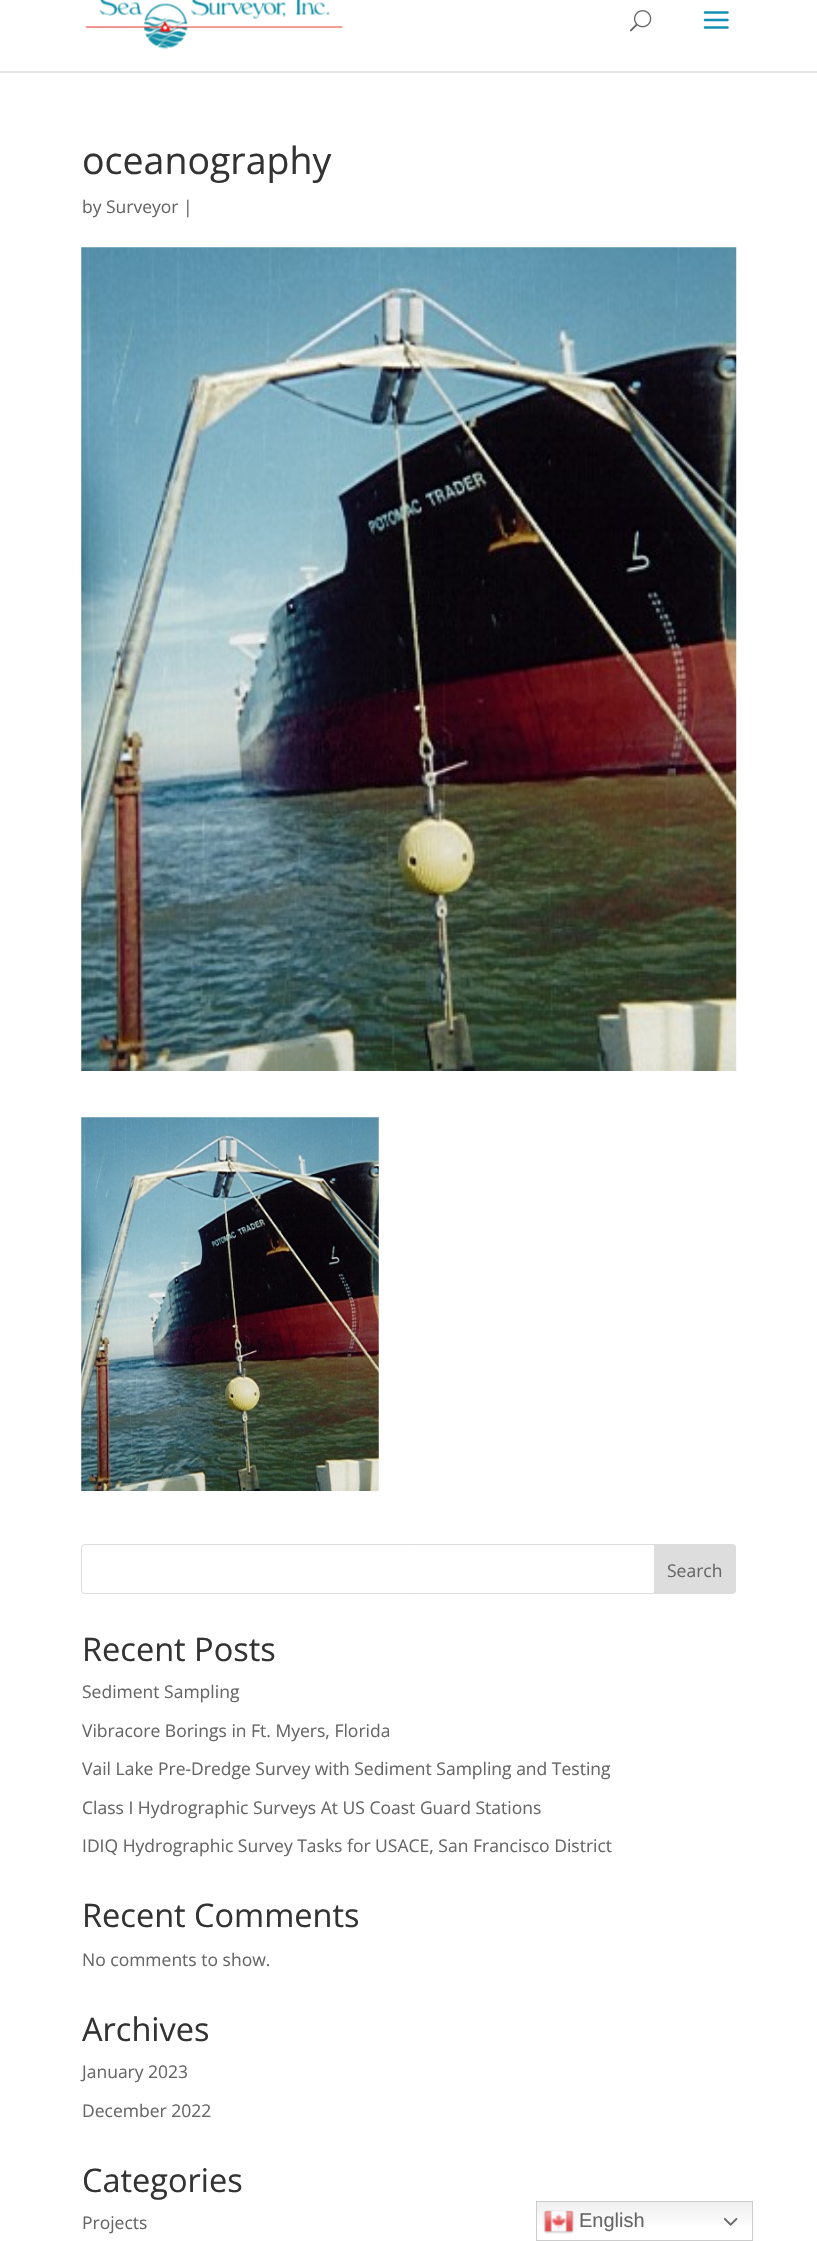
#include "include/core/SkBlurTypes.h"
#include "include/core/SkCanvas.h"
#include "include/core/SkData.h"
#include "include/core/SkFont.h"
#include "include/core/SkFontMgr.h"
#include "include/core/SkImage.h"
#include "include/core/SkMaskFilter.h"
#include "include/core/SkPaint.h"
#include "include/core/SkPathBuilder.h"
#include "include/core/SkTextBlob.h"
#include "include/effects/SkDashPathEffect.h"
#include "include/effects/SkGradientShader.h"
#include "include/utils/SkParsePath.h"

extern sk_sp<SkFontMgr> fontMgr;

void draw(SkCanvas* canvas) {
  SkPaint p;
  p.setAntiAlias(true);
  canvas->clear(SK_ColorWHITE);
  p.setColor(SkColorSetRGB(230, 230, 230));
  canvas->drawPath(SkPathBuilder().moveTo(0, 71).lineTo(0, 73).lineTo(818, 73).lineTo(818, -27).lineTo(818, 71).close().detach(), p);
  canvas->drawImageRect(SkImages::DeferredFromEncodedData(SkData::MakeFromFileName("images/1.png")), SkRect::MakeLTRB(86, 0, 344, 49), SkSamplingOptions());
  canvas->drawImageRect(SkImages::DeferredFromEncodedData(SkData::MakeFromFileName("images/2.png")), SkRect::MakeLTRB(630, 10, 652, 32), SkSamplingOptions());
  canvas->drawImageRect(SkImages::DeferredFromEncodedData(SkData::MakeFromFileName("images/3.png")), SkRect::MakeLTRB(703, 11, 729, 29), SkSamplingOptions());
  canvas->drawImageRect(SkImages::DeferredFromEncodedData(SkData::MakeFromFileName("images/4.png")), SkRect::MakeLTRB(81, 247, 737, 1071), SkSamplingOptions());
  canvas->drawImageRect(SkImages::DeferredFromEncodedData(SkData::MakeFromFileName("images/5.png")), SkRect::MakeLTRB(81, 1117, 379, 1491), SkSamplingOptions());
  p.setStyle(SkPaint::kStroke_Style);
  p.setStrokeWidth(1);
  p.setColor(SkColorSetRGB(221, 221, 221));
  canvas->drawRoundRect(SkRect::MakeLTRB(81.5f, 1544.5f, 735.5f, 1593.5f), 3.5f, 3.5f, p);
  p.setStyle(SkPaint::kFill_Style);
  canvas->drawPath(SkPathBuilder().moveTo(654.5f, 1544.5f).lineTo(732, 1544.5f).cubicTo(734, 1544.5f, 735.5f, 1546, 735.5f, 1548).lineTo(735.5f, 1590).cubicTo(735.5f, 1592, 734, 1593.5f, 732, 1593.5f).lineTo(654.5f, 1593.5f).close().detach(), p);
  p.setStyle(SkPaint::kStroke_Style);
  canvas->drawPath(SkPathBuilder().moveTo(654.5f, 1544.5f).lineTo(732, 1544.5f).cubicTo(734, 1544.5f, 735.5f, 1546, 735.5f, 1548).lineTo(735.5f, 1590).cubicTo(735.5f, 1592, 734, 1593.5f, 732, 1593.5f).lineTo(654.5f, 1593.5f).close().detach(), p);
  p.setStyle(SkPaint::kFill_Style);
  {
    const SkColor colors[] = {SkColorSetRGB(239, 239, 239), SK_ColorWHITE};
    const float stops[] = {0, 0.7f};
    const SkPoint ends[] = {{644, 2201}, {644, 2241}};
    p.setShader(SkGradientShader::MakeLinear(ends, colors, stops, 2, SkTileMode::kClamp));
    p.setAlpha(255);
  }
  canvas->drawRect(SkRect::MakeLTRB(537, 2202, 752, 2225), p);
  p.setStyle(SkPaint::kStroke_Style);
  p.setShader(nullptr);
  p.setColor(SkColorSetRGB(204, 204, 204));
  canvas->drawRect(SkRect::MakeLTRB(536.5f, 2201.5f, 752.5f, 2240.5f), p);
  canvas->drawImageRect(SkImages::DeferredFromEncodedData(SkData::MakeFromFileName("images/6.png")), SkRect::MakeLTRB(543, 2210, 574, 2234), SkSamplingOptions());
  canvas->drawImageRect(SkImages::DeferredFromEncodedData(SkData::MakeFromFileName("images/7.png")), SkRect::MakeLTRB(724, 2217, 738, 2226), SkSamplingOptions());
  SkFont font1(fontMgr->matchFamilyStyle("Open Sans", SkFontStyle::Normal()), 37.5f);
  font1.setSubpixel(true);
  p.setStyle(SkPaint::kFill_Style);
  p.setColor(SkColorSetRGB(51, 51, 51));
  canvas->drawString("oceanography", 82, 174, font1, p);
  SkFont font2(fontMgr->matchFamilyStyle("Open Sans", SkFontStyle::Normal()), 17.5f);
  font2.setSubpixel(true);
  p.setColor(SkColorSetRGB(102, 102, 102));
  canvas->drawString("by Surveyor |", 82, 213, font2, p);
  canvas->drawString("Search", 667, 1577, font2, p);
  SkFont font3(fontMgr->matchFamilyStyle("Open Sans", SkFontStyle::Normal()), 32.5f);
  font3.setSubpixel(true);
  p.setColor(SkColorSetRGB(51, 51, 51));
  canvas->drawString("Recent Posts", 82, 1661, font3, p);
  p.setColor(SkColorSetRGB(102, 102, 102));
  canvas->drawString("Sediment Sampling", 82, 1698, font2, p);
  canvas->drawString("Vibracore Borings in Ft. Myers, Florida", 82, 1737, font2, p);
  canvas->drawString("Vail Lake Pre-Dredge Survey with Sediment Sampling and Testing", 82, 1775, font2, p);
  canvas->drawString("Class I Hydrographic Surveys At US Coast Guard Stations", 82, 1814, font2, p);
  canvas->drawString("IDIQ Hydrographic Survey Tasks for USACE, San Francisco District", 82, 1852, font2, p);
  p.setColor(SkColorSetRGB(51, 51, 51));
  canvas->drawString("Recent Comments", 82, 1927, font3, p);
  p.setColor(SkColorSetRGB(102, 102, 102));
  canvas->drawString("No comments to show.", 82, 1966, font2, p);
  p.setColor(SkColorSetRGB(51, 51, 51));
  canvas->drawString("Archives", 82, 2041, font3, p);
  p.setColor(SkColorSetRGB(102, 102, 102));
  canvas->drawString("January 2023", 82, 2078, font2, p);
  canvas->drawString("December 2022", 82, 2117, font2, p);
  p.setColor(SkColorSetRGB(51, 51, 51));
  canvas->drawString("Categories", 82, 2192, font3, p);
  p.setColor(SkColorSetRGB(102, 102, 102));
  canvas->drawString("Projects", 82, 2229, font2, p);
  SkFont font4(fontMgr->matchFamilyStyle("Liberation Sans", SkFontStyle::Normal()), 20);
  font4.setSubpixel(true);
  canvas->drawString("English", 579, 2227, font4, p);
}
